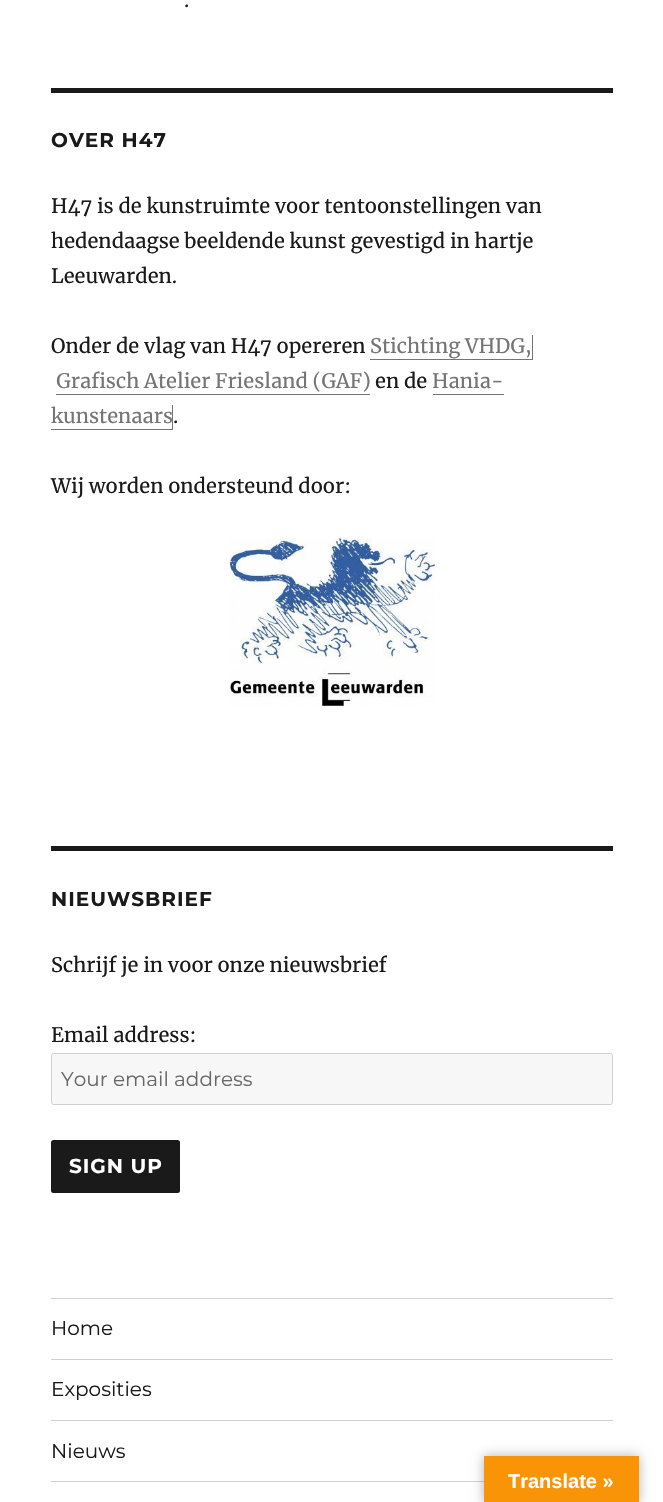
#include "include/core/SkBlurTypes.h"
#include "include/core/SkCanvas.h"
#include "include/core/SkData.h"
#include "include/core/SkFont.h"
#include "include/core/SkFontMgr.h"
#include "include/core/SkImage.h"
#include "include/core/SkMaskFilter.h"
#include "include/core/SkPaint.h"
#include "include/core/SkPathBuilder.h"
#include "include/core/SkTextBlob.h"
#include "include/effects/SkDashPathEffect.h"
#include "include/effects/SkGradientShader.h"
#include "include/utils/SkParsePath.h"

extern sk_sp<SkFontMgr> fontMgr;

void draw(SkCanvas* canvas) {
  SkPaint p;
  p.setAntiAlias(true);
  auto spacedText = [&](const char* s, float x, float y, const SkFont& font, const SkPaint& ink, float letter, float word) {
    std::vector<SkGlyphID> glyphs(font.countText(s, strlen(s), SkTextEncoding::kUTF8));
    std::vector<float> xs(glyphs.size());
    font.textToGlyphs(s, strlen(s), SkTextEncoding::kUTF8, glyphs);
    font.getXPos(glyphs, xs, x);
    float extra = 0;
    for (size_t i = 0; i < glyphs.size(); i++) {
      xs[i] += extra;
      extra += letter + word * (glyphs[i] == font.unicharToGlyph(' '));
    }
    canvas->drawTextBlob(SkTextBlob::MakeFromPosHGlyphs(glyphs, xs, y, font), 0, 0, ink);
  };
  canvas->clear(SK_ColorWHITE);
  p.setColor(SkColorSetRGB(26, 26, 26));
  canvas->drawRect(SkRect::MakeLTRB(51, 88, 613, 93), p);
  p.setColor(SkColorSetRGB(117, 117, 117));
  canvas->drawPath(SkPathBuilder().moveTo(370, 359).lineTo(370, 360).lineTo(533, 360).lineTo(533, 335).lineTo(532, 335).lineTo(532, 359).close().detach(), p);
  canvas->drawPath(SkPathBuilder().moveTo(56, 370).lineTo(56, 395).lineTo(370, 395).lineTo(370, 394).lineTo(56, 394).close().detach(), p);
  canvas->drawPath(SkPathBuilder().moveTo(433, 394).lineTo(433, 395).lineTo(504, 395).lineTo(504, 370).lineTo(504, 394).close().detach(), p);
  canvas->drawPath(SkPathBuilder().moveTo(51, 405).lineTo(51, 430).lineTo(173, 430).lineTo(173, 405).lineTo(172, 405).lineTo(172, 429).lineTo(51, 429).close().detach(), p);
  canvas->drawImageRect(SkImages::DeferredFromEncodedData(SkData::MakeFromFileName("images/1.png")), SkRect::MakeLTRB(230, 538, 435, 706), SkSamplingOptions());
  p.setColor(SkColorSetRGB(26, 26, 26));
  canvas->drawRect(SkRect::MakeLTRB(51, 846, 613, 851), p);
  p.setColor(SkColorSetRGB(247, 247, 247));
  canvas->drawRoundRect(SkRect::MakeLTRB(51.5f, 1053.5f, 612.5f, 1104.5f), 2, 2, p);
  p.setStyle(SkPaint::kStroke_Style);
  p.setStrokeWidth(1);
  p.setColor(SkColorSetRGB(209, 209, 209));
  canvas->drawRoundRect(SkRect::MakeLTRB(51.5f, 1053.5f, 612.5f, 1104.5f), 2, 2, p);
  p.setStyle(SkPaint::kFill_Style);
  p.setColor(SkColorSetRGB(26, 26, 26));
  canvas->drawRoundRect(SkRect::MakeLTRB(51, 1140, 180, 1193), 2.5f, 2.5f, p);
  p.setColor(SkColorSetRGB(209, 209, 209));
  canvas->drawRect(SkRect::MakeLTRB(51, 1298, 613, 1299), p);
  canvas->drawRect(SkRect::MakeLTRB(51, 1359, 613, 1360), p);
  canvas->drawRect(SkRect::MakeLTRB(51, 1420, 613, 1421), p);
  canvas->drawRect(SkRect::MakeLTRB(51, 1481, 484, 1482), p);
  p.setColor(SkColorSetARGB(77, 0, 0, 0));
  p.setMaskFilter(SkMaskFilter::MakeBlur(kNormal_SkBlurStyle, 5.5f));
  canvas->drawRect(SkRect::MakeLTRB(484, 1456, 639, 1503), p);
  p.setMaskFilter(nullptr);
  p.setColor(SkColorSetRGB(248, 148, 6));
  canvas->drawRect(SkRect::MakeLTRB(484, 1456, 639, 1502), p);
  SkFont font1(fontMgr->matchFamilyStyle("Merriweather", SkFontStyle::Normal()), 20);
  font1.setSubpixel(true);
  p.setColor(SkColorSetRGB(26, 26, 26));
  canvas->drawString(".", 184, 7, font1, p);
  SkFont font2(fontMgr->matchFamilyStyle("Montserrat", SkFontStyle(100, SkFontStyle::kNormal_Width, SkFontStyle::kUpright_Slant)), 20);
  font2.setSubpixel(true);
  spacedText("OVER H47", 51, 147, font2, p, 1, 0);
  canvas->drawString("H47 is de kunstruimte voor tentoonstellingen van", 51, 213, font1, p);
  canvas->drawString("hedendaagse beeldende kunst gevestigd in hartje", 51, 248, font1, p);
  canvas->drawString("Leeuwarden.", 51, 283, font1, p);
  canvas->drawString("Onder de vlag van H47 opereren", 51, 353, font1, p);
  p.setColor(SkColorSetRGB(117, 117, 117));
  canvas->drawString("Stichting VHDG,", 370, 353, font1, p);
  canvas->drawString("Grafisch Atelier Friesland (GAF)", 56, 388, font1, p);
  p.setColor(SkColorSetRGB(26, 26, 26));
  canvas->drawString("en de", 375, 388, font1, p);
  p.setColor(SkColorSetRGB(117, 117, 117));
  canvas->drawString("Hania-", 432, 388, font1, p);
  canvas->drawString("kunstenaars", 51, 423, font1, p);
  p.setColor(SkColorSetRGB(26, 26, 26));
  canvas->drawString(".", 173, 423, font1, p);
  canvas->drawString("Wij worden ondersteund door:", 51, 493, font1, p);
  spacedText("NIEUWSBRIEF", 51, 906, font2, p, 1, 0);
  canvas->drawString("Schrijf je in voor onze nieuwsbrief", 51, 972, font1, p);
  canvas->drawString("Email address:", 51, 1042, font1, p);
  SkFont font3(fontMgr->matchFamilyStyle("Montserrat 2", SkFontStyle(100, SkFontStyle::kNormal_Width, SkFontStyle::kUpright_Slant)), 20);
  font3.setSubpixel(true);
  p.setColor(SkColorSetRGB(104, 104, 104));
  canvas->drawString("Your email address", 61, 1086, font3, p);
  p.setColor(SK_ColorWHITE);
  spacedText("SIGN UP", 69, 1173, font2, p, 1, 0);
  p.setColor(SkColorSetRGB(26, 26, 26));
  canvas->drawString("Home", 51, 1335, font3, p);
  canvas->drawString("Exposities", 51, 1396, font3, p);
  canvas->drawString("Nieuws", 51, 1458, font3, p);
  SkFont font4(fontMgr->matchFamilyStyle("Liberation Sans", SkFontStyle::Bold()), 20);
  font4.setSubpixel(true);
  p.setColor(SK_ColorWHITE);
  canvas->drawString("Translate »", 508, 1488, font4, p);
}
